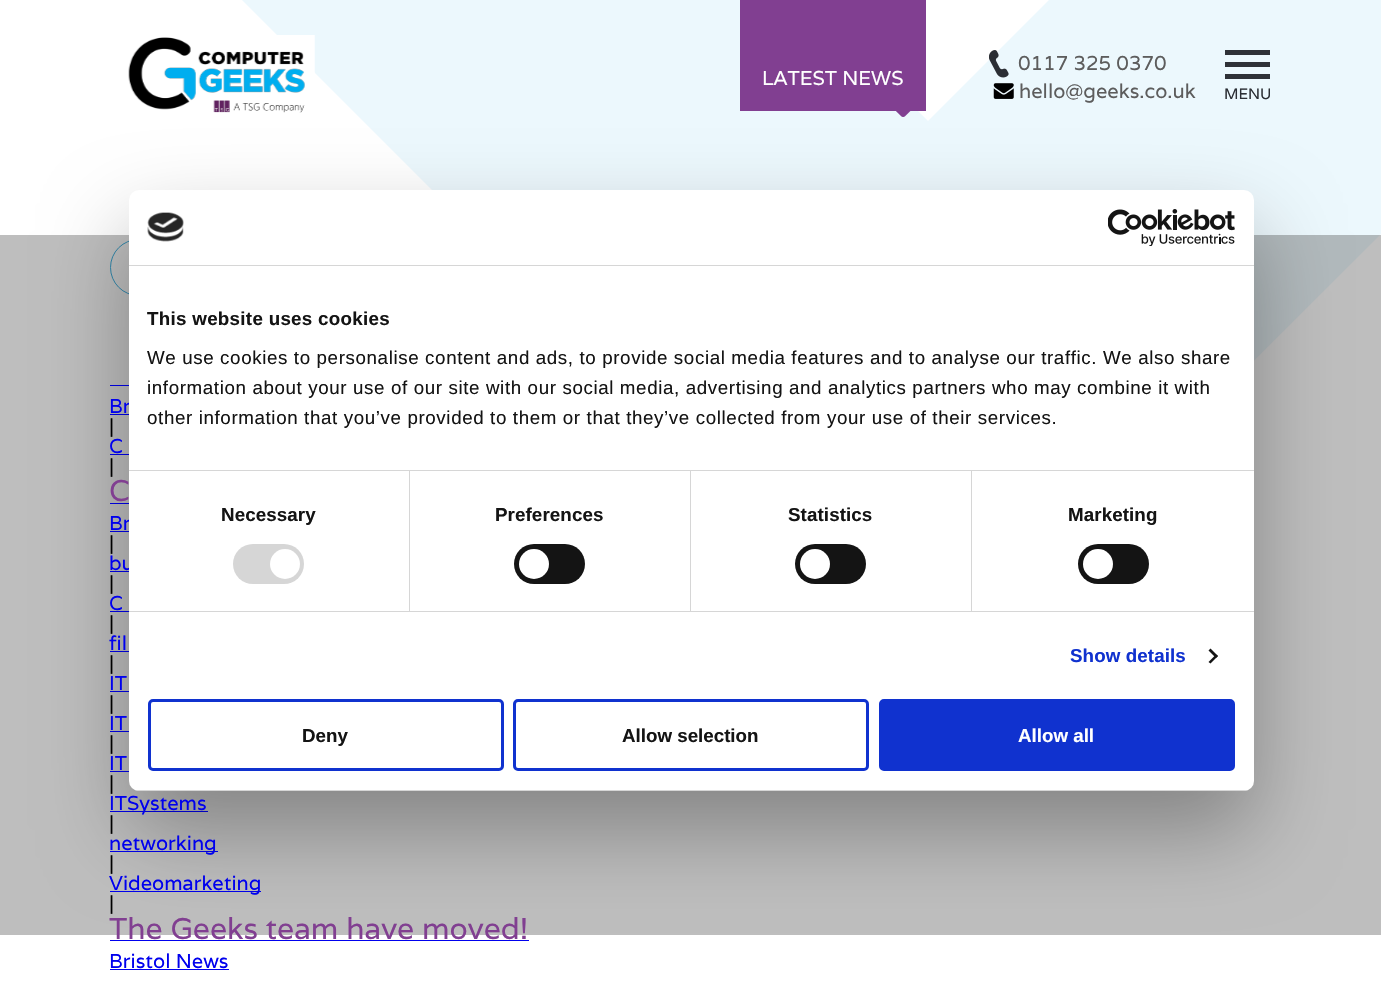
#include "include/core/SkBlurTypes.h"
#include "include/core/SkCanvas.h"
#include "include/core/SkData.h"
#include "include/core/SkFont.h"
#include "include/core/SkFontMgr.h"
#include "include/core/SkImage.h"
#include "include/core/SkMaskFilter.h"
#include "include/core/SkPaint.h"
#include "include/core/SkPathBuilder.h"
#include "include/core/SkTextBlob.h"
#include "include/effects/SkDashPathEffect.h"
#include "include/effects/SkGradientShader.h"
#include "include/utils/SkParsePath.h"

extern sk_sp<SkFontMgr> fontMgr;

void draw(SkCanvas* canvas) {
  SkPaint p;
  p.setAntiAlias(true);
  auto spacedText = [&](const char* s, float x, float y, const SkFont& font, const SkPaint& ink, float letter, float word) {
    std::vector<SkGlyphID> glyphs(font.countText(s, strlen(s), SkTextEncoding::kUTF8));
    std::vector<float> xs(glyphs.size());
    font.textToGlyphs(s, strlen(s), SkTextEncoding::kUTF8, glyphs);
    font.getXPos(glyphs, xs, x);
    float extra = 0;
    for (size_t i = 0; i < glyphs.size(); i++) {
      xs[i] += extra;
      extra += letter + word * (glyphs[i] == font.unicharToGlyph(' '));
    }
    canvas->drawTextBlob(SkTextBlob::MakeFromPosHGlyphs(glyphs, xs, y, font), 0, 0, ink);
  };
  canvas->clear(SK_ColorWHITE);
  p.setColor(SkColorSetRGB(236, 248, 253));
  canvas->drawPath(SkPathBuilder().moveTo(787, 545).lineTo(242, 0).lineTo(807, 0).lineTo(928, 121).lineTo(1049, 0).lineTo(1381, 0).lineTo(1381, 234).lineTo(1069, 545).cubicTo(1032, 583, 981, 604, 928, 604).cubicTo(875, 604, 824, 583, 787, 545).close().detach(), p);
  canvas->drawImageRect(SkImages::DeferredFromEncodedData(SkData::MakeFromFileName("images/1.png")), SkRect::MakeLTRB(128, 35, 315, 113), SkSamplingOptions());
  p.setColor(SkColorSetRGB(129, 63, 145));
  canvas->drawRect(SkRect::MakeLTRB(740, 0, 926, 111), p);
  canvas->drawImageRect(SkImages::DeferredFromEncodedData(SkData::MakeFromFileName("images/2.png")), SkRect::MakeLTRB(896, 111, 911, 117), SkSamplingOptions());
  canvas->drawImageRect(SkImages::DeferredFromEncodedData(SkData::MakeFromFileName("images/3.png")), SkRect::MakeLTRB(989, 50, 1009, 78), SkSamplingOptions());
  canvas->drawImageRect(SkImages::DeferredFromEncodedData(SkData::MakeFromFileName("images/4.png")), SkRect::MakeLTRB(993, 83, 1014, 99), SkSamplingOptions());
  p.setColor(SkColorSetRGB(47, 50, 56));
  canvas->drawRect(SkRect::MakeLTRB(1225, 74, 1270, 79), p);
  canvas->drawRect(SkRect::MakeLTRB(1225, 62, 1270, 67), p);
  canvas->drawRect(SkRect::MakeLTRB(1225, 50, 1270, 55), p);
  p.setStyle(SkPaint::kStroke_Style);
  p.setStrokeWidth(1);
  p.setColor(SkColorSetRGB(53, 175, 226));
  canvas->drawRoundRect(SkRect::MakeLTRB(110.5f, 239.5f, 333.5f, 295.5f), 28, 28, p);
  p.setStyle(SkPaint::kFill_Style);
  p.setColor(SkColorSetARGB(77, 39, 39, 39));
  canvas->drawRect(SkRect::MakeLTRB(0, 235, 1381, 935), p);
  p.setColor(SkColorSetRGB(0, 0, 238));
  canvas->drawRect(SkRect::MakeLTRB(110, 385, 129, 386), p);
  canvas->drawRect(SkRect::MakeLTRB(110, 414, 129, 415), p);
  canvas->drawRect(SkRect::MakeLTRB(110, 454, 129, 455), p);
  canvas->drawRect(SkRect::MakeLTRB(110, 503, 129, 504), p);
  canvas->drawRect(SkRect::MakeLTRB(110, 531, 129, 532), p);
  canvas->drawRect(SkRect::MakeLTRB(110, 571, 129, 572), p);
  canvas->drawRect(SkRect::MakeLTRB(110, 611, 129, 612), p);
  canvas->drawRect(SkRect::MakeLTRB(110, 651, 129, 652), p);
  canvas->drawRect(SkRect::MakeLTRB(110, 691, 129, 692), p);
  canvas->drawRect(SkRect::MakeLTRB(110, 731, 129, 732), p);
  canvas->drawRect(SkRect::MakeLTRB(110, 771, 129, 772), p);
  canvas->drawRect(SkRect::MakeLTRB(110, 811, 208, 812), p);
  canvas->drawRect(SkRect::MakeLTRB(110, 851, 218, 852), p);
  canvas->drawRect(SkRect::MakeLTRB(110, 891, 261, 892), p);
  canvas->drawRect(SkRect::MakeLTRB(110, 940, 529, 941), p);
  canvas->drawRect(SkRect::MakeLTRB(110, 969, 229, 970), p);
  p.setColor(SkColorSetARGB(77, 0, 0, 0));
  p.setMaskFilter(SkMaskFilter::MakeBlur(kNormal_SkBlurStyle, 42.5f));
  canvas->drawRoundRect(SkRect::MakeLTRB(129, 230, 1254, 831), 10, 10, p);
  p.setMaskFilter(nullptr);
  SkFont font1(fontMgr->matchFamilyStyle("Varela", SkFontStyle::Normal()), 20);
  font1.setSubpixel(true);
  p.setColor(SK_ColorWHITE);
  canvas->drawString("LATEST NEWS", 762, 85, font1, p);
  p.setColor(SkColorSetRGB(93, 93, 93));
  canvas->drawString("0117 325 0370", 1018, 70, font1, p);
  canvas->drawString("hello@geeks.co.uk", 1019, 98, font1, p);
  SkFont font2(fontMgr->matchFamilyStyle("Varela", SkFontStyle::Normal()), 15);
  font2.setSubpixel(true);
  p.setColor(SkColorSetRGB(43, 46, 52));
  canvas->drawString("MENU", 1224, 99, font2, p);
  p.setColor(SkColorSetRGB(0, 0, 238));
  canvas->drawString("Br", 109, 413, font1, p);
  p.setColor(SK_ColorBLACK);
  canvas->drawString("|", 109, 433, font1, p);
  p.setColor(SkColorSetRGB(0, 0, 238));
  canvas->drawString("C", 109, 453, font1, p);
  p.setColor(SK_ColorBLACK);
  canvas->drawString("|", 109, 473, font1, p);
  SkFont font3(fontMgr->matchFamilyStyle("Varela", SkFontStyle::Normal()), 30);
  font3.setSubpixel(true);
  p.setColor(SkColorSetRGB(129, 63, 145));
  canvas->drawString("C", 109, 501, font3, p);
  p.setColor(SkColorSetRGB(0, 0, 238));
  canvas->drawString("Br", 109, 530, font1, p);
  p.setColor(SK_ColorBLACK);
  canvas->drawString("|", 109, 550, font1, p);
  p.setColor(SkColorSetRGB(0, 0, 238));
  canvas->drawString("bu", 109, 570, font1, p);
  p.setColor(SK_ColorBLACK);
  canvas->drawString("|", 109, 590, font1, p);
  p.setColor(SkColorSetRGB(0, 0, 238));
  canvas->drawString("C", 109, 610, font1, p);
  p.setColor(SK_ColorBLACK);
  canvas->drawString("|", 109, 630, font1, p);
  p.setColor(SkColorSetRGB(0, 0, 238));
  canvas->drawString("fil", 109, 650, font1, p);
  p.setColor(SK_ColorBLACK);
  canvas->drawString("|", 109, 670, font1, p);
  p.setColor(SkColorSetRGB(0, 0, 238));
  canvas->drawString("IT", 109, 690, font1, p);
  p.setColor(SK_ColorBLACK);
  canvas->drawString("|", 109, 710, font1, p);
  p.setColor(SkColorSetRGB(0, 0, 238));
  canvas->drawString("IT", 109, 730, font1, p);
  p.setColor(SK_ColorBLACK);
  canvas->drawString("|", 109, 750, font1, p);
  p.setColor(SkColorSetRGB(0, 0, 238));
  canvas->drawString("IT", 109, 770, font1, p);
  p.setColor(SK_ColorBLACK);
  canvas->drawString("|", 109, 790, font1, p);
  p.setColor(SkColorSetRGB(0, 0, 238));
  canvas->drawString("ITSystems", 109, 810, font1, p);
  p.setColor(SK_ColorBLACK);
  canvas->drawString("|", 109, 830, font1, p);
  p.setColor(SkColorSetRGB(0, 0, 238));
  canvas->drawString("networking", 109, 850, font1, p);
  p.setColor(SK_ColorBLACK);
  canvas->drawString("|", 109, 870, font1, p);
  p.setColor(SkColorSetRGB(0, 0, 238));
  canvas->drawString("Videomarketing", 109, 890, font1, p);
  p.setColor(SK_ColorBLACK);
  canvas->drawString("|", 109, 910, font1, p);
  p.setColor(SkColorSetRGB(129, 63, 145));
  canvas->drawString("The Geeks team have moved!", 109, 939, font3, p);
  p.setColor(SkColorSetRGB(0, 0, 238));
  canvas->drawString("Bristol News", 109, 968, font1, p);
  p.setColor(SK_ColorWHITE);
  canvas->drawRoundRect(SkRect::MakeLTRB(129, 190, 1254, 791), 10, 10, p);
  p.setColor(SkColorSetRGB(214, 214, 214));
  canvas->drawRect(SkRect::MakeLTRB(129, 265, 1254, 266), p);
  canvas->drawImageRect(SkImages::DeferredFromEncodedData(SkData::MakeFromFileName("images/5.png")), SkRect::MakeLTRB(147, 212, 184, 242), SkSamplingOptions());
  canvas->drawImageRect(SkImages::DeferredFromEncodedData(SkData::MakeFromFileName("images/6.png")), SkRect::MakeLTRB(1108, 209, 1235, 246), SkSamplingOptions());
  canvas->drawRect(SkRect::MakeLTRB(129, 470, 1254, 471), p);
  SkFont font4(fontMgr->matchFamilyStyle("Liberation Sans", SkFontStyle::Bold()), 18.75f);
  font4.setSubpixel(true);
  p.setColor(SkColorSetRGB(20, 20, 20));
  spacedText("This website uses cookies", 147, 325, font4, p, 0.3f, 0);
  SkFont font5(fontMgr->matchFamilyStyle("Liberation Sans", SkFontStyle::Normal()), 18.75f);
  font5.setSubpixel(true);
  spacedText("We use cookies to personalise content and ads, to provide social media features and to analyse our traffic. We also share", 147, 364, font5, p, 0.62f, 0);
  spacedText("information about your use of our site with our social media, advertising and analytics partners who may combine it with", 147, 394, font5, p, 0.62f, 0);
  spacedText("other information that you’ve provided to them or that they’ve collected from your use of their services.", 147, 424, font5, p, 0.62f, 0);
  p.setColor(SkColorSetRGB(214, 214, 214));
  canvas->drawRect(SkRect::MakeLTRB(129, 611, 1254, 612), p);
  canvas->drawRect(SkRect::MakeLTRB(409, 471, 410, 611), p);
  p.setColor(SkColorSetRGB(20, 20, 20));
  spacedText("Necessary", 221, 521, font4, p, 0.1f, 0);
  p.setColor(SkColorSetRGB(214, 214, 214));
  canvas->drawRoundRect(SkRect::MakeLTRB(233, 544, 304, 584), 20, 20, p);
  p.setColor(SK_ColorWHITE);
  canvas->drawCircle(285, 564, 15, p);
  p.setColor(SkColorSetRGB(214, 214, 214));
  canvas->drawRect(SkRect::MakeLTRB(690, 471, 691, 611), p);
  p.setColor(SkColorSetRGB(20, 20, 20));
  spacedText("Preferences", 495, 521, font4, p, 0.1f, 0);
  canvas->drawRoundRect(SkRect::MakeLTRB(514, 544, 585, 584), 20, 20, p);
  p.setColor(SK_ColorWHITE);
  canvas->drawCircle(534, 564, 15, p);
  p.setColor(SkColorSetRGB(214, 214, 214));
  canvas->drawRect(SkRect::MakeLTRB(971, 471, 972, 611), p);
  p.setColor(SkColorSetRGB(20, 20, 20));
  spacedText("Statistics", 788, 521, font4, p, 0.1f, 0);
  canvas->drawRoundRect(SkRect::MakeLTRB(795, 544, 866, 584), 20, 20, p);
  p.setColor(SK_ColorWHITE);
  canvas->drawCircle(815, 564, 15, p);
  p.setColor(SkColorSetRGB(20, 20, 20));
  spacedText("Marketing", 1068, 521, font4, p, 0.1f, 0);
  canvas->drawRoundRect(SkRect::MakeLTRB(1078, 544, 1149, 584), 20, 20, p);
  p.setColor(SK_ColorWHITE);
  canvas->drawCircle(1098, 564, 15, p);
  p.setColor(SkColorSetRGB(16, 50, 207));
  spacedText("Show details", 1070, 662, font4, p, 0.1f, 0);
  p.setColor(SkColorSetRGB(20, 20, 20));
  canvas->drawPath(SkPathBuilder().moveTo(1210.5f, 648.5f).lineTo(1218, 656).lineTo(1216, 658).lineTo(1208.5f, 650.5f).close().detach(), p);
  canvas->drawPath(SkPathBuilder().moveTo(1216, 654.5f).lineTo(1218, 656).lineTo(1210.5f, 663.5f).lineTo(1208.5f, 662).close().detach(), p);
  canvas->save();
  canvas->clipPath(SkPathBuilder().moveTo(139, 190).lineTo(1244, 190).cubicTo(1249.5f, 190, 1254, 194.5f, 1254, 200).lineTo(1254, 781).cubicTo(1254, 786.5f, 1249.5f, 791, 1244, 791).lineTo(139, 791).cubicTo(133.5f, 791, 129, 786.5f, 129, 781).lineTo(129, 200).cubicTo(129, 194.5f, 133.5f, 190, 139, 190).close().detach(), true);
  p.setColor(SkColorSetRGB(214, 214, 214));
  canvas->drawRect(SkRect::MakeLTRB(129, 790, 1254, 791), p);
  canvas->restore();
  p.setStyle(SkPaint::kStroke_Style);
  p.setStrokeWidth(3);
  p.setColor(SkColorSetRGB(16, 50, 207));
  canvas->drawRoundRect(SkRect::MakeLTRB(149.5f, 700.5f, 502.5f, 769.5f), 3.5f, 3.5f, p);
  p.setStyle(SkPaint::kFill_Style);
  p.setColor(SkColorSetRGB(20, 20, 20));
  canvas->drawString("Deny", 302, 742, font4, p);
  p.setStyle(SkPaint::kStroke_Style);
  p.setColor(SkColorSetRGB(16, 50, 207));
  canvas->drawRoundRect(SkRect::MakeLTRB(514.5f, 700.5f, 867.5f, 769.5f), 3.5f, 3.5f, p);
  p.setStyle(SkPaint::kFill_Style);
  p.setColor(SkColorSetRGB(20, 20, 20));
  canvas->drawString("Allow selection", 622, 742, font4, p);
  p.setColor(SkColorSetRGB(16, 50, 207));
  canvas->drawRoundRect(SkRect::MakeLTRB(880.5f, 700.5f, 1233.5f, 769.5f), 3.5f, 3.5f, p);
  p.setStyle(SkPaint::kStroke_Style);
  canvas->drawRoundRect(SkRect::MakeLTRB(880.5f, 700.5f, 1233.5f, 769.5f), 3.5f, 3.5f, p);
  p.setStyle(SkPaint::kFill_Style);
  p.setColor(SK_ColorWHITE);
  canvas->drawString("Allow all", 1018, 742, font4, p);
}
